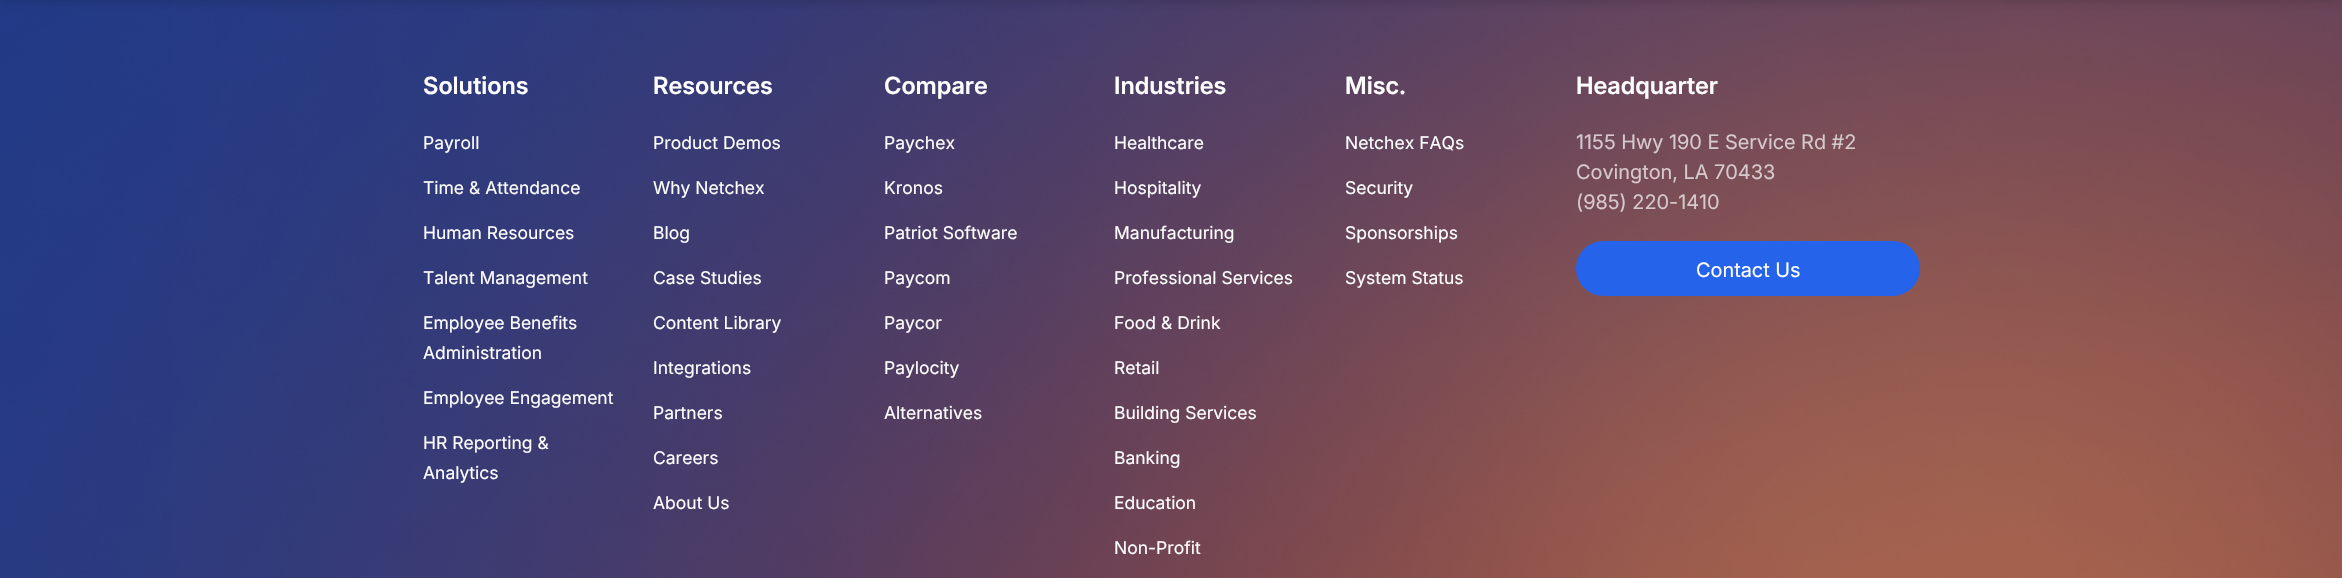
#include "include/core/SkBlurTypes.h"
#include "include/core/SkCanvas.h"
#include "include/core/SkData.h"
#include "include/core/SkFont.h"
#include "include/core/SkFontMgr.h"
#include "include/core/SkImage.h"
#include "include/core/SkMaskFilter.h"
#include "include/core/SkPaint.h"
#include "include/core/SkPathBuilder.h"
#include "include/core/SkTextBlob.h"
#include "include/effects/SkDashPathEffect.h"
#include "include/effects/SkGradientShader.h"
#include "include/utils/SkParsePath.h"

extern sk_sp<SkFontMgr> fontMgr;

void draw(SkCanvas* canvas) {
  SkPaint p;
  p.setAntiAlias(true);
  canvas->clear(SK_ColorWHITE);
  canvas->drawImageRect(SkImages::DeferredFromEncodedData(SkData::MakeFromFileName("images/1.png")), SkRect::MakeLTRB(0, 0, 2342, 578), SkSamplingOptions());
  p.setColor(SkColorSetARGB(26, 0, 0, 0));
  p.setMaskFilter(SkMaskFilter::MakeBlur(kNormal_SkBlurStyle, 4));
  canvas->drawRect(SkRect::MakeLTRB(1, -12, 2341, 4), p);
  p.setMaskFilter(nullptr);
  p.setColor(SkColorSetRGB(37, 99, 235));
  canvas->drawRoundRect(SkRect::MakeLTRB(1576, 241, 1920, 296), 27.5f, 27.5f, p);
  SkFont font1(fontMgr->matchFamilyStyle("Inter", SkFontStyle(600, SkFontStyle::kNormal_Width, SkFontStyle::kUpright_Slant)), 23.75f);
  font1.setSubpixel(true);
  p.setColor(SK_ColorWHITE);
  canvas->drawString("Solutions", 423, 94, font1, p);
  SkFont font2(fontMgr->matchFamilyStyle("Inter", SkFontStyle::Normal()), 17.5f);
  font2.setSubpixel(true);
  canvas->drawString("Payroll", 423, 149, font2, p);
  canvas->drawString("Time & Attendance", 423, 194, font2, p);
  canvas->drawString("Human Resources", 423, 239, font2, p);
  canvas->drawString("Talent Management", 423, 284, font2, p);
  canvas->drawString("Employee Benefits", 423, 329, font2, p);
  canvas->drawString("Administration", 423, 359, font2, p);
  canvas->drawString("Employee Engagement", 423, 404, font2, p);
  canvas->drawString("HR Reporting &", 423, 449, font2, p);
  canvas->drawString("Analytics", 423, 479, font2, p);
  canvas->drawString("Resources", 653, 94, font1, p);
  canvas->drawString("Product Demos", 653, 149, font2, p);
  canvas->drawString("Why Netchex", 653, 194, font2, p);
  canvas->drawString("Blog", 653, 239, font2, p);
  canvas->drawString("Case Studies", 653, 284, font2, p);
  canvas->drawString("Content Library", 653, 329, font2, p);
  canvas->drawString("Integrations", 653, 374, font2, p);
  canvas->drawString("Partners", 653, 419, font2, p);
  canvas->drawString("Careers", 653, 464, font2, p);
  canvas->drawString("About Us", 653, 509, font2, p);
  canvas->drawString("Compare", 884, 94, font1, p);
  canvas->drawString("Paychex", 884, 149, font2, p);
  canvas->drawString("Kronos", 884, 194, font2, p);
  canvas->drawString("Patriot Software", 884, 239, font2, p);
  canvas->drawString("Paycom", 884, 284, font2, p);
  canvas->drawString("Paycor", 884, 329, font2, p);
  canvas->drawString("Paylocity", 884, 374, font2, p);
  canvas->drawString("Alternatives", 884, 419, font2, p);
  canvas->drawString("Industries", 1114, 94, font1, p);
  canvas->drawString("Healthcare", 1114, 149, font2, p);
  canvas->drawString("Hospitality", 1114, 194, font2, p);
  canvas->drawString("Manufacturing", 1114, 239, font2, p);
  canvas->drawString("Professional Services", 1114, 284, font2, p);
  canvas->drawString("Food & Drink", 1114, 329, font2, p);
  canvas->drawString("Retail", 1114, 374, font2, p);
  canvas->drawString("Building Services", 1114, 419, font2, p);
  canvas->drawString("Banking", 1114, 464, font2, p);
  canvas->drawString("Education", 1114, 509, font2, p);
  canvas->drawString("Non-Profit", 1114, 554, font2, p);
  canvas->drawString("Misc.", 1345, 94, font1, p);
  canvas->drawString("Netchex FAQs", 1345, 149, font2, p);
  canvas->drawString("Security", 1345, 194, font2, p);
  canvas->drawString("Sponsorships", 1345, 239, font2, p);
  canvas->drawString("System Status", 1345, 284, font2, p);
  canvas->drawString("Headquarter", 1576, 94, font1, p);
  SkFont font3(fontMgr->matchFamilyStyle("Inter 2", SkFontStyle::Normal()), 20);
  font3.setSubpixel(true);
  p.setColor(SkColorSetRGB(214, 201, 205));
  canvas->drawString("1155 Hwy 190 E Service Rd #2", 1576, 149, font3, p);
  canvas->drawString("Covington, LA 70433", 1576, 179, font3, p);
  canvas->drawString("(985) 220-1410", 1576, 209, font3, p);
  p.setColor(SK_ColorWHITE);
  canvas->drawString("Contact Us", 1696, 277, font3, p);
}
